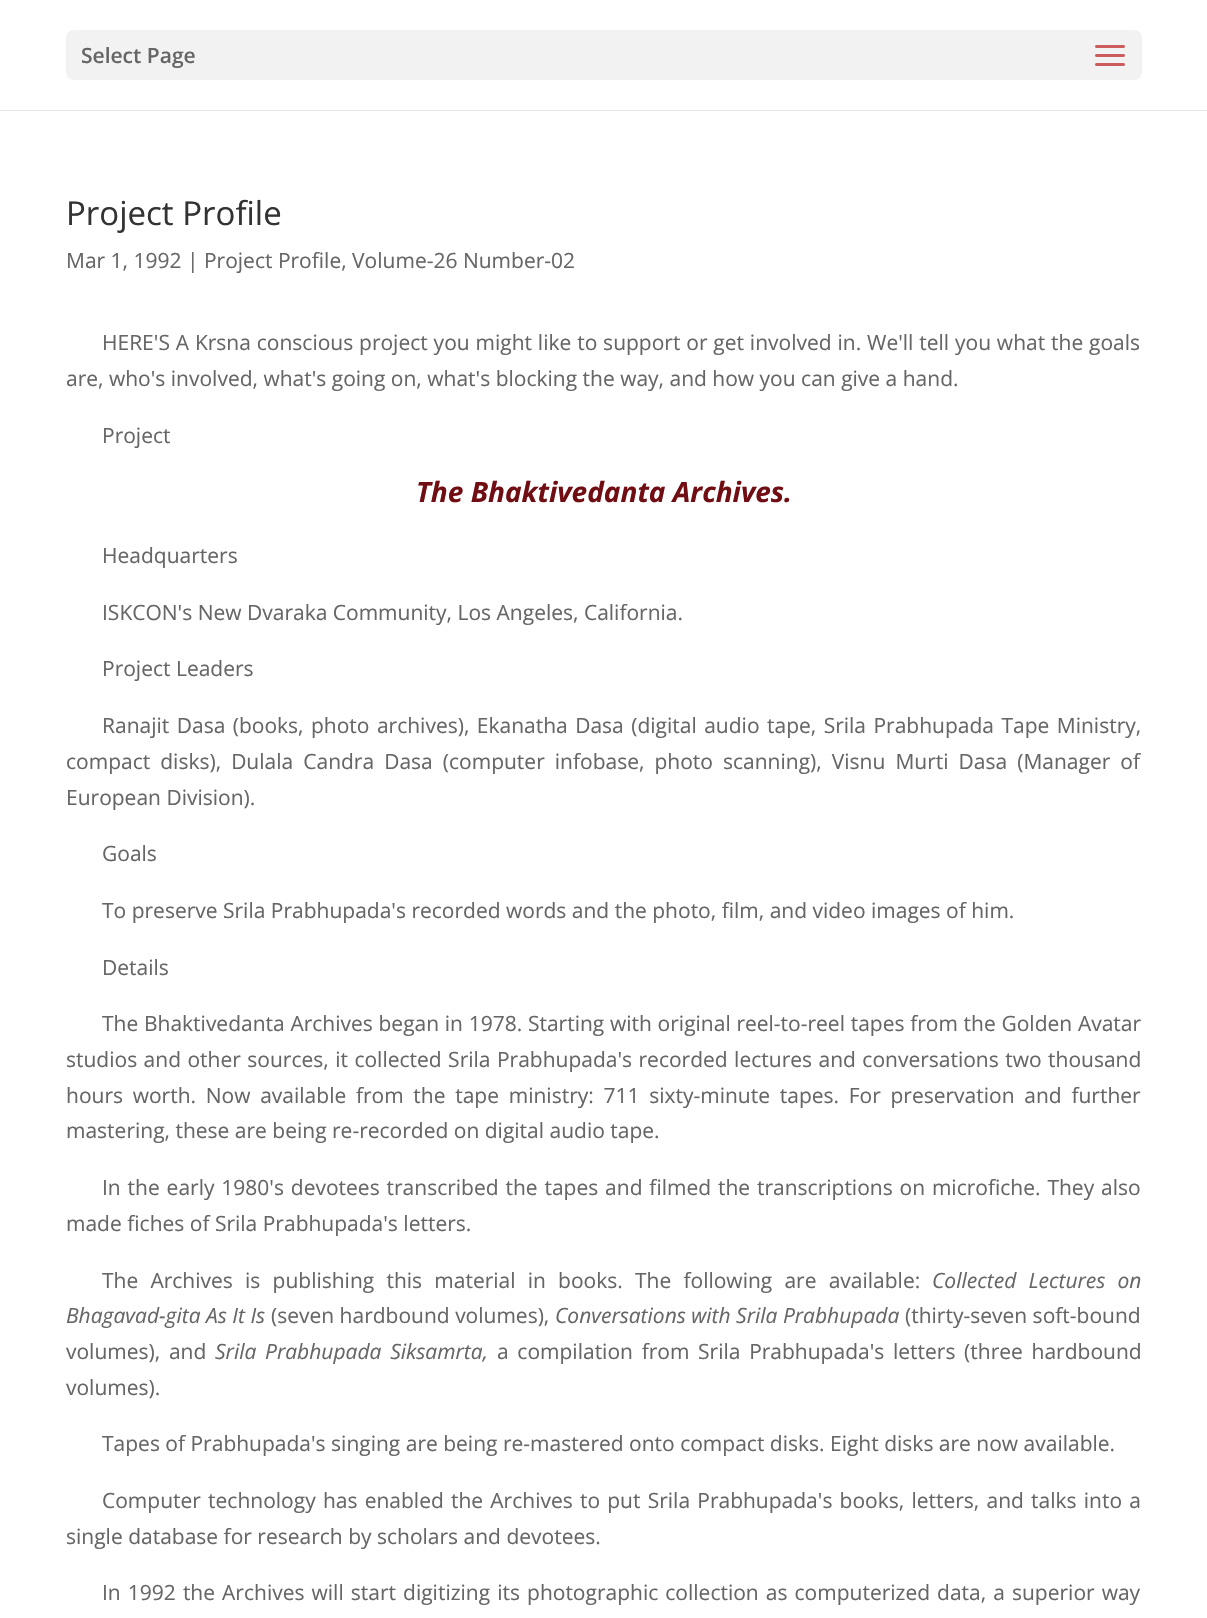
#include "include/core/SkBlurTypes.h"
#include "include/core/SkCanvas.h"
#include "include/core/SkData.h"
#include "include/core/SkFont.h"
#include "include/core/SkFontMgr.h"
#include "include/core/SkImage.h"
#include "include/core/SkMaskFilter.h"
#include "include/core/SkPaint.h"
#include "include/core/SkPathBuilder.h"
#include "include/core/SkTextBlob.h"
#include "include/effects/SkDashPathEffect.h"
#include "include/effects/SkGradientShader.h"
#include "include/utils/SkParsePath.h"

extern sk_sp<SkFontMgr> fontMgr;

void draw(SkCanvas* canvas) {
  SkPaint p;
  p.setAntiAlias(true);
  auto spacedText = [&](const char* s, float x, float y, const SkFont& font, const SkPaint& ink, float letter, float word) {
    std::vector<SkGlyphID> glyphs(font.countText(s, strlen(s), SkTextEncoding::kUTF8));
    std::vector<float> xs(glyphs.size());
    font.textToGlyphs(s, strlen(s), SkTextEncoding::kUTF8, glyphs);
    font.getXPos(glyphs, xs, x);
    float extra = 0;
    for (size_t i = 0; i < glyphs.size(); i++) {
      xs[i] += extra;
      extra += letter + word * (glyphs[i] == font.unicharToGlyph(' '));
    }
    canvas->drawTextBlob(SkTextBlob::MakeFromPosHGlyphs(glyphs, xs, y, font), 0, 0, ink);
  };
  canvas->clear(SK_ColorWHITE);
  p.setColor(SkColorSetRGB(230, 230, 230));
  canvas->drawPath(SkPathBuilder().moveTo(0, 110).lineTo(0, 111).lineTo(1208, 111).lineTo(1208, -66).lineTo(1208, 110).close().detach(), p);
  p.setColor(SkColorSetRGB(242, 242, 242));
  canvas->drawRoundRect(SkRect::MakeLTRB(66, 30, 1142, 80), 8, 8, p);
  canvas->drawImageRect(SkImages::DeferredFromEncodedData(SkData::MakeFromFileName("images/1.png")), SkRect::MakeLTRB(1095, 45, 1125, 66), SkSamplingOptions());
  SkFont font1(fontMgr->matchFamilyStyle("Open Sans", SkFontStyle(600, SkFontStyle::kNormal_Width, SkFontStyle::kUpright_Slant)), 21);
  font1.setSubpixel(true);
  p.setColor(SkColorSetRGB(102, 102, 102));
  canvas->drawString("Select Page", 81, 63, font1, p);
  SkFont font2(fontMgr->matchFamilyStyle("Open Sans", SkFontStyle::Normal()), 33);
  font2.setSubpixel(true);
  p.setColor(SkColorSetRGB(51, 51, 51));
  canvas->drawString("Project Profile", 66, 225, font2, p);
  SkFont font3(fontMgr->matchFamilyStyle("Open Sans", SkFontStyle::Normal()), 21);
  font3.setSubpixel(true);
  p.setColor(SkColorSetRGB(102, 102, 102));
  canvas->drawString("Mar 1, 1992 | Project Profile, Volume-26 Number-02", 66, 268, font3, p);
  spacedText("HERE'S A Krsna conscious project you might like to support or get involved in. We'll tell you what the goals", 102, 350, font3, p, 0, 0.4f);
  canvas->drawString("are, who's involved, what's going on, what's blocking the way, and how you can give a hand.", 66, 386, font3, p);
  canvas->drawString("Project", 102, 443, font3, p);
  SkFont font4(fontMgr->matchFamilyStyle("Open Sans", SkFontStyle::BoldItalic()), 28);
  font4.setSubpixel(true);
  p.setColor(SkColorSetRGB(113, 14, 19));
  canvas->drawString("The Bhaktivedanta Archives.", 416, 502, font4, p);
  p.setColor(SkColorSetRGB(102, 102, 102));
  canvas->drawString("Headquarters", 102, 563, font3, p);
  canvas->drawString("ISKCON's New Dvaraka Community, Los Angeles, California.", 102, 620, font3, p);
  canvas->drawString("Project Leaders", 102, 676, font3, p);
  spacedText("Ranajit Dasa (books, photo archives), Ekanatha Dasa (digital audio tape, Srila Prabhupada Tape Ministry,", 102, 733, font3, p, 0, 2);
  spacedText("compact disks), Dulala Candra Dasa (computer infobase, photo scanning), Visnu Murti Dasa (Manager of", 66, 769, font3, p, 0, 4.6f);
  canvas->drawString("European Division).", 66, 805, font3, p);
  canvas->drawString("Goals", 102, 861, font3, p);
  canvas->drawString("To preserve Srila Prabhupada's recorded words and the photo, film, and video images of him.", 102, 918, font3, p);
  canvas->drawString("Details", 102, 975, font3, p);
  spacedText("The Bhaktivedanta Archives began in 1978. Starting with original reel-to-reel tapes from the Golden Avatar", 102, 1031, font3, p, 0, 0.25f);
  spacedText("studios and other sources, it collected Srila Prabhupada's recorded lectures and conversations two thousand", 66, 1067, font3, p, 0, 1);
  spacedText("hours worth. Now available from the tape ministry: 711 sixty-minute tapes. For preservation and further", 66, 1103, font3, p, 0, 4.25f);
  canvas->drawString("mastering, these are being re-recorded on digital audio tape.", 66, 1138, font3, p);
  spacedText("In the early 1980's devotees transcribed the tapes and filmed the transcriptions on microfiche. They also", 102, 1195, font3, p, 0, 1.4f);
  canvas->drawString("made fiches of Srila Prabhupada's letters.", 66, 1231, font3, p);
  spacedText("The Archives is publishing this material in books. The following are available:", 102, 1288, font3, p, 0, 6.75f);
  SkFont font5(fontMgr->matchFamilyStyle("Open Sans", SkFontStyle::Italic()), 21);
  font5.setSubpixel(true);
  spacedText("Collected Lectures on", 932, 1288, font5, p, 0, 6.75f);
  canvas->drawString("Bhagavad-gita As It Is", 66, 1323, font5, p);
  canvas->drawString("(seven hardbound volumes),", 271, 1323, font3, p);
  canvas->drawString("Conversations with Srila Prabhupada", 555, 1323, font5, p);
  canvas->drawString("(thirty-seven soft-bound", 905, 1323, font3, p);
  spacedText("volumes), and", 66, 1359, font3, p, 0, 3.25f);
  spacedText("Srila Prabhupada Siksamrta,", 215, 1359, font5, p, 0, 3.25f);
  spacedText("a compilation from Srila Prabhupada's letters (three hardbound", 497, 1359, font3, p, 0, 3.25f);
  canvas->drawString("volumes).", 66, 1395, font3, p);
  canvas->drawString("Tapes of Prabhupada's singing are being re-mastered onto compact disks. Eight disks are now available.", 102, 1451, font3, p);
  spacedText("Computer technology has enabled the Archives to put Srila Prabhupada's books, letters, and talks into a", 102, 1508, font3, p, 0, 1.75f);
  canvas->drawString("single database for research by scholars and devotees.", 66, 1544, font3, p);
  spacedText("In 1992 the Archives will start digitizing its photographic collection as computerized data, a superior way", 102, 1600, font3, p, 0, 1.6f);
}
